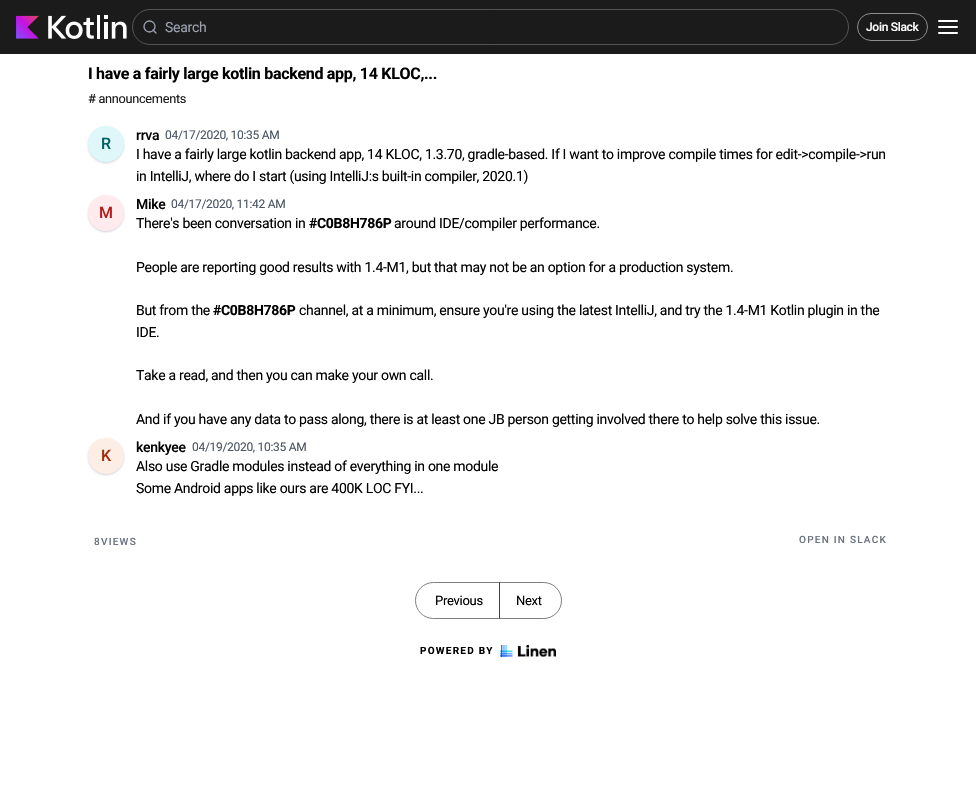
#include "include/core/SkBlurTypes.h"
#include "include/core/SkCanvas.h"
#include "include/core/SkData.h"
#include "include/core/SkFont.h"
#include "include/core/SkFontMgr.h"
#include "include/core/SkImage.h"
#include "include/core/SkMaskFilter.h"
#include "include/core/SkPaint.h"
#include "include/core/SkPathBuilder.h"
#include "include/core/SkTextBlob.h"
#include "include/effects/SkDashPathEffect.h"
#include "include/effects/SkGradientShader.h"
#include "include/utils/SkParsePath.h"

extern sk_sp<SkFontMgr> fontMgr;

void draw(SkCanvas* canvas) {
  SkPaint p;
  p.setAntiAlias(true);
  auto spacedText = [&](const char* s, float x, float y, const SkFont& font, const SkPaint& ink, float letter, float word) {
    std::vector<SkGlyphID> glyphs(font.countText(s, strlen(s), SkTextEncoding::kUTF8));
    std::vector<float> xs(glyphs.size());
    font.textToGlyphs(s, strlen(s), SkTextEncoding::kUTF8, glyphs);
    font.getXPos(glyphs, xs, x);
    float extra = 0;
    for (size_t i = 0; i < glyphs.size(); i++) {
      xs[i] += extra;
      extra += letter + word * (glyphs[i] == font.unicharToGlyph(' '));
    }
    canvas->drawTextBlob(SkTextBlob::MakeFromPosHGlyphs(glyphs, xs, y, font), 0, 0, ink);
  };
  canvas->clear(SK_ColorWHITE);
  p.setColor(SkColorSetRGB(27, 27, 27));
  canvas->drawRect(SkRect::MakeLTRB(0, 0, 976, 54), p);
  canvas->drawImageRect(SkImages::DeferredFromEncodedData(SkData::MakeFromFileName("images/1.png")), SkRect::MakeLTRB(16, 15, 127, 39), SkSamplingOptions());
  p.setStyle(SkPaint::kStroke_Style);
  p.setStrokeWidth(1);
  p.setColor(SkColorSetRGB(84, 84, 84));
  canvas->drawRoundRect(SkRect::MakeLTRB(132.5f, 9.5f, 848.5f, 44.5f), 17.5f, 17.5f, p);
  p.setStrokeWidth(1.3f);
  p.setColor(SkColorSetRGB(156, 163, 175));
  canvas->drawCircle(149.5f, 26.5f, 5.5f, p);
  p.setStrokeCap(SkPaint::kRound_Cap);
  p.setStrokeJoin(SkPaint::kRound_Join);
  canvas->drawPath(SkPathBuilder().moveTo(156, 33).lineTo(153, 30).detach(), p);
  p.setStrokeWidth(1);
  p.setStrokeCap(SkPaint::kButt_Cap);
  p.setStrokeJoin(SkPaint::kMiter_Join);
  p.setColor(SkColorSetRGB(141, 141, 141));
  canvas->drawRoundRect(SkRect::MakeLTRB(857.5f, 13.5f, 927.5f, 40.5f), 13.5f, 13.5f, p);
  p.setStrokeWidth(2);
  p.setStrokeCap(SkPaint::kRound_Cap);
  p.setStrokeJoin(SkPaint::kRound_Join);
  p.setColor(SK_ColorWHITE);
  canvas->drawPath(SkPathBuilder().moveTo(939, 27).lineTo(957, 27).moveTo(939, 21).lineTo(957, 21).moveTo(939, 33).lineTo(957, 33).detach(), p);
  p.setStyle(SkPaint::kFill_Style);
  p.setColor(SkColorSetRGB(209, 213, 219));
  p.setMaskFilter(SkMaskFilter::MakeBlur(kNormal_SkBlurStyle, 1));
  canvas->drawRoundRect(SkRect::MakeLTRB(88, 127, 124, 163), 18, 18, p);
  p.setMaskFilter(nullptr);
  p.setColor(SkColorSetRGB(224, 247, 250));
  canvas->drawCircle(106, 144, 18, p);
  p.setColor(SkColorSetRGB(209, 213, 219));
  p.setMaskFilter(SkMaskFilter::MakeBlur(kNormal_SkBlurStyle, 1));
  canvas->drawRoundRect(SkRect::MakeLTRB(88, 196, 124, 232), 18, 18, p);
  p.setMaskFilter(nullptr);
  p.setColor(SkColorSetRGB(255, 235, 238));
  canvas->drawCircle(106, 213, 18, p);
  p.setColor(SkColorSetRGB(209, 213, 219));
  p.setMaskFilter(SkMaskFilter::MakeBlur(kNormal_SkBlurStyle, 1));
  canvas->drawRoundRect(SkRect::MakeLTRB(88, 439, 124, 475), 18, 18, p);
  p.setMaskFilter(nullptr);
  p.setColor(SkColorSetRGB(253, 238, 229));
  canvas->drawCircle(106, 456, 18, p);
  p.setStyle(SkPaint::kStroke_Style);
  p.setStrokeWidth(1);
  p.setStrokeCap(SkPaint::kButt_Cap);
  p.setStrokeJoin(SkPaint::kMiter_Join);
  p.setColor(SkColorSetRGB(128, 128, 128));
  canvas->drawPath(SkPathBuilder().moveTo(433.5f, 582.5f).lineTo(499.5f, 582.5f).lineTo(499.5f, 618.5f).lineTo(433.5f, 618.5f).cubicTo(423.5f, 618.5f, 415.5f, 610.5f, 415.5f, 600.5f).cubicTo(415.5f, 590.5f, 423.5f, 582.5f, 433.5f, 582.5f).close().detach(), p);
  p.setColor(SkColorSetARGB(128, 0, 0, 0));
  canvas->drawPath(SkPathBuilder().moveTo(499.5f, 582.5f).lineTo(543.5f, 582.5f).cubicTo(553.5f, 582.5f, 561.5f, 590.5f, 561.5f, 600.5f).cubicTo(561.5f, 610.5f, 553.5f, 618.5f, 543.5f, 618.5f).lineTo(499.5f, 618.5f).close().detach(), p);
  canvas->drawImageRect(SkImages::DeferredFromEncodedData(SkData::MakeFromFileName("images/2.png")), SkRect::MakeLTRB(500, 645, 556, 657), SkSamplingOptions());
  SkFont font1(fontMgr->matchFamilyStyle("Roboto", SkFontStyle::Normal()), 14);
  font1.setSubpixel(true);
  p.setStyle(SkPaint::kFill_Style);
  p.setColor(SkColorSetRGB(156, 163, 175));
  spacedText("Search", 165, 32, font1, p, -0.3f, 0);
  SkFont font2(fontMgr->matchFamilyStyle("Roboto", SkFontStyle(500, SkFontStyle::kNormal_Width, SkFontStyle::kUpright_Slant)), 12);
  font2.setSubpixel(true);
  p.setColor(SK_ColorWHITE);
  spacedText("Join Slack", 866, 31, font2, p, -0.3f, 0);
  SkFont font3(fontMgr->matchFamilyStyle("Roboto", SkFontStyle::Bold()), 16);
  font3.setSubpixel(true);
  p.setColor(SK_ColorBLACK);
  spacedText("I have a fairly large kotlin backend app, 14 KLOC,...", 88, 79, font3, p, -0.3f, 0);
  SkFont font4(fontMgr->matchFamilyStyle("Roboto", SkFontStyle::Normal()), 12.75f);
  font4.setSubpixel(true);
  p.setColor(SkColorSetRGB(26, 26, 26));
  spacedText("# announcements", 88, 103, font4, p, -0.3f, 0);
  SkFont font5(fontMgr->matchFamilyStyle("Roboto", SkFontStyle(500, SkFontStyle::kNormal_Width, SkFontStyle::kUpright_Slant)), 16);
  font5.setSubpixel(true);
  p.setColor(SkColorSetRGB(0, 96, 100));
  spacedText("R", 101, 149, font5, p, -0.3f, 0);
  SkFont font6(fontMgr->matchFamilyStyle("Roboto", SkFontStyle(500, SkFontStyle::kNormal_Width, SkFontStyle::kUpright_Slant)), 14);
  font6.setSubpixel(true);
  p.setColor(SK_ColorBLACK);
  spacedText("rrva", 136, 140, font6, p, -0.3f, 0);
  SkFont font7(fontMgr->matchFamilyStyle("Roboto", SkFontStyle::Normal()), 12);
  font7.setSubpixel(true);
  p.setColor(SkColorSetRGB(75, 85, 99));
  spacedText("04/17/2020, 10:35 AM", 165, 139, font7, p, -0.3f, 0);
  p.setColor(SK_ColorBLACK);
  spacedText("I have a fairly large kotlin backend app, 14 KLOC, 1.3.70, gradle-based. If I want to improve compile times for edit->compile->run", 136, 159, font1, p, -0.3f, 0);
  spacedText("in IntelliJ, where do I start (using IntelliJ:s built-in compiler, 2020.1)", 136, 181, font1, p, -0.3f, 0);
  p.setColor(SkColorSetRGB(183, 28, 28));
  spacedText("M", 99, 218, font5, p, -0.3f, 0);
  p.setColor(SK_ColorBLACK);
  spacedText("Mike", 136, 209, font6, p, -0.3f, 0);
  p.setColor(SkColorSetRGB(75, 85, 99));
  spacedText("04/17/2020, 11:42 AM", 171, 208, font7, p, -0.3f, 0);
  p.setColor(SK_ColorBLACK);
  spacedText("There's been conversation in", 136, 228, font1, p, -0.3f, 0);
  SkFont font8(fontMgr->matchFamilyStyle("Roboto", SkFontStyle::Bold()), 14);
  font8.setSubpixel(true);
  spacedText("#C0B8H786P", 309, 228, font8, p, -0.3f, 0);
  spacedText("around IDE/compiler performance.", 394, 228, font1, p, -0.3f, 0);
  spacedText("People are reporting good results with 1.4-M1, but that may not be an option for a production system.", 136, 272, font1, p, -0.3f, 0);
  spacedText("But from the", 136, 315, font1, p, -0.3f, 0);
  spacedText("#C0B8H786P", 213, 315, font8, p, -0.3f, 0);
  spacedText("channel, at a minimum, ensure you're using the latest IntelliJ, and try the 1.4-M1 Kotlin plugin in the", 299, 315, font1, p, -0.3f, 0);
  spacedText("IDE.", 136, 337, font1, p, -0.3f, 0);
  spacedText("Take a read, and then you can make your own call.", 136, 380, font1, p, -0.3f, 0);
  spacedText("And if you have any data to pass along, there is at least one JB person getting involved there to help solve this issue.", 136, 424, font1, p, -0.3f, 0);
  p.setColor(SkColorSetRGB(162, 45, 9));
  spacedText("K", 101, 461, font5, p, -0.3f, 0);
  p.setColor(SK_ColorBLACK);
  spacedText("kenkyee", 136, 452, font6, p, -0.3f, 0);
  p.setColor(SkColorSetRGB(75, 85, 99));
  spacedText("04/19/2020, 10:35 AM", 192, 451, font7, p, -0.3f, 0);
  p.setColor(SK_ColorBLACK);
  spacedText("Also use Gradle modules instead of everything in one module", 136, 471, font1, p, -0.3f, 0);
  spacedText("Some Android apps like ours are 400K LOC FYI...", 136, 493, font1, p, -0.3f, 0);
  SkFont font9(fontMgr->matchFamilyStyle("Roboto", SkFontStyle(500, SkFontStyle::kNormal_Width, SkFontStyle::kUpright_Slant)), 10);
  font9.setSubpixel(true);
  p.setColor(SkColorSetRGB(107, 114, 128));
  spacedText("8VIEWS", 94, 545, font9, p, 1.25f, 0);
  spacedText("OPEN IN SLACK", 799, 543, font9, p, 1.25f, 0);
  SkFont font10(fontMgr->matchFamilyStyle("Roboto", SkFontStyle::Normal()), 13);
  font10.setSubpixel(true);
  p.setColor(SK_ColorBLACK);
  spacedText("Previous", 435, 605, font10, p, -0.3f, 0);
  spacedText("Next", 516, 605, font10, p, -0.3f, 0);
  SkFont font11(fontMgr->matchFamilyStyle("Roboto", SkFontStyle::Bold()), 10);
  font11.setSubpixel(true);
  spacedText("POWERED BY", 420, 654, font11, p, 1.25f, 0);
}
